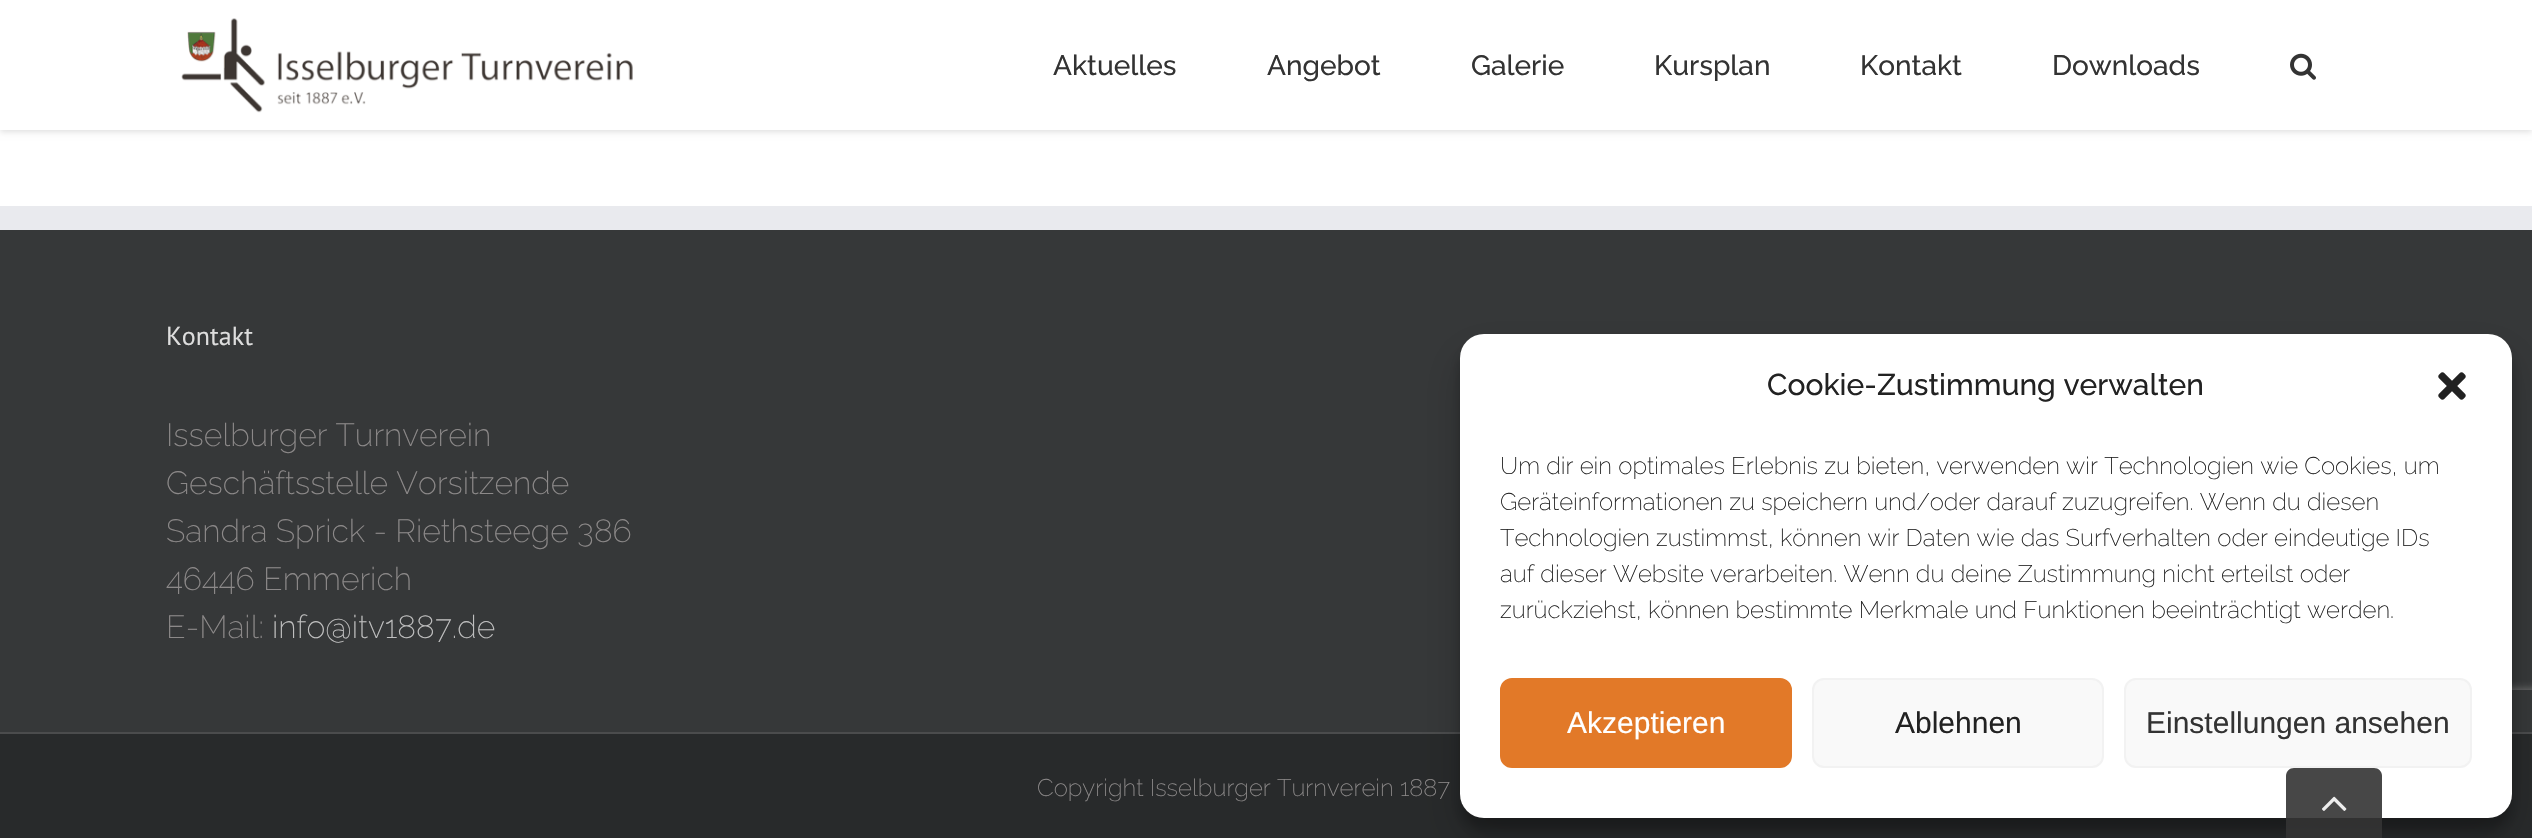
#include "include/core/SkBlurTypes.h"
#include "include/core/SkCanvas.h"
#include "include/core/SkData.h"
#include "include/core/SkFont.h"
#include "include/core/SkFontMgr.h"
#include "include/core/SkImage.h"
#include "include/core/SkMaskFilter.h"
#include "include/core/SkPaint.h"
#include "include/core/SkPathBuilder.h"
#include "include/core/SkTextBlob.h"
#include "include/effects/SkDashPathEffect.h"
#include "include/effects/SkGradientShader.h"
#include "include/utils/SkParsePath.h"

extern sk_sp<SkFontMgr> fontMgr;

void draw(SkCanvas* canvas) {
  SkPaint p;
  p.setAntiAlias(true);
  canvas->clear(SK_ColorWHITE);
  p.setColor(SkColorSetARGB(31, 0, 0, 0));
  p.setMaskFilter(SkMaskFilter::MakeBlur(kNormal_SkBlurStyle, 3));
  canvas->drawRect(SkRect::MakeLTRB(0, 2, 2532, 132), p);
  p.setMaskFilter(nullptr);
  p.setColor(SK_ColorWHITE);
  canvas->drawRect(SkRect::MakeLTRB(0, 0, 2532, 130), p);
  canvas->drawImageRect(SkImages::DeferredFromEncodedData(SkData::MakeFromFileName("images/1.png")), SkRect::MakeLTRB(181, 18, 633, 113), SkSamplingOptions());
  canvas->drawImageRect(SkImages::DeferredFromEncodedData(SkData::MakeFromFileName("images/2.png")), SkRect::MakeLTRB(2290, 53, 2316, 80), SkSamplingOptions());
  p.setColor(SkColorSetRGB(54, 56, 57));
  canvas->drawRect(SkRect::MakeLTRB(0, 230, 2532, 732), p);
  p.setColor(SkColorSetRGB(233, 234, 238));
  canvas->drawRect(SkRect::MakeLTRB(0, 206, 2532, 230), p);
  canvas->save();
  canvas->clipRect(SkRect::MakeLTRB(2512, 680, 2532, 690));
  p.setColor(SkColorSetRGB(128, 128, 128));
  p.setMaskFilter(SkMaskFilter::MakeBlur(kNormal_SkBlurStyle, 5));
  canvas->drawRoundRect(SkRect::MakeLTRB(2392, 690, 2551, 810), 4, 4, p);
  p.setMaskFilter(nullptr);
  canvas->restore();
  p.setColor(SkColorSetRGB(40, 42, 43));
  canvas->drawRect(SkRect::MakeLTRB(0, 734, 2532, 838), p);
  p.setColor(SkColorSetRGB(75, 76, 77));
  canvas->drawRect(SkRect::MakeLTRB(0, 732, 2532, 734), p);
  p.setColor(SkColorSetARGB(59, 0, 0, 0));
  p.setMaskFilter(SkMaskFilter::MakeBlur(kNormal_SkBlurStyle, 6));
  canvas->drawRoundRect(SkRect::MakeLTRB(1460, 346, 2512, 830), 24, 24, p);
  p.setMaskFilter(nullptr);
  p.setColor(SkColorSetARGB(48, 0, 0, 0));
  p.setMaskFilter(SkMaskFilter::MakeBlur(kNormal_SkBlurStyle, 20));
  canvas->drawRoundRect(SkRect::MakeLTRB(1460, 354, 2512, 838), 24, 24, p);
  p.setMaskFilter(nullptr);
  p.setColor(SK_ColorWHITE);
  canvas->drawRoundRect(SkRect::MakeLTRB(1460, 334, 2512, 818), 24, 24, p);
  canvas->drawImageRect(SkImages::DeferredFromEncodedData(SkData::MakeFromFileName("images/3.png")), SkRect::MakeLTRB(2438, 372, 2466, 400), SkSamplingOptions());
  p.setColor(SkColorSetRGB(226, 121, 40));
  canvas->drawRoundRect(SkRect::MakeLTRB(1501, 679, 1791, 767), 11, 11, p);
  p.setStyle(SkPaint::kStroke_Style);
  p.setStrokeWidth(2);
  canvas->drawRoundRect(SkRect::MakeLTRB(1501, 679, 1791, 767), 11, 11, p);
  p.setStyle(SkPaint::kFill_Style);
  p.setColor(SkColorSetRGB(249, 249, 249));
  canvas->drawRoundRect(SkRect::MakeLTRB(1813, 679, 2103, 767), 11, 11, p);
  p.setStyle(SkPaint::kStroke_Style);
  p.setColor(SkColorSetRGB(242, 242, 242));
  canvas->drawRoundRect(SkRect::MakeLTRB(1813, 679, 2103, 767), 11, 11, p);
  p.setStyle(SkPaint::kFill_Style);
  p.setColor(SkColorSetRGB(249, 249, 249));
  canvas->drawRoundRect(SkRect::MakeLTRB(2125, 679, 2471, 767), 11, 11, p);
  p.setStyle(SkPaint::kStroke_Style);
  p.setColor(SkColorSetRGB(242, 242, 242));
  canvas->drawRoundRect(SkRect::MakeLTRB(2125, 679, 2471, 767), 11, 11, p);
  p.setStyle(SkPaint::kFill_Style);
  p.setColor(SkColorSetARGB(230, 51, 51, 51));
  canvas->drawPath(SkPathBuilder().moveTo(2294, 768).lineTo(2374, 768).cubicTo(2378.5f, 768, 2382, 771.5f, 2382, 776).lineTo(2382, 838).lineTo(2286, 838).lineTo(2286, 776).cubicTo(2286, 771.5f, 2289.5f, 768, 2294, 768).close().detach(), p);
  canvas->drawImageRect(SkImages::DeferredFromEncodedData(SkData::MakeFromFileName("images/4.png")), SkRect::MakeLTRB(2322, 796, 2347, 811), SkSamplingOptions());
  SkFont font1(fontMgr->matchFamilyStyle("Raleway", SkFontStyle(500, SkFontStyle::kNormal_Width, SkFontStyle::kUpright_Slant)), 28);
  font1.setSubpixel(true);
  p.setColor(SkColorSetRGB(51, 51, 51));
  canvas->drawString("Aktuelles", 1053, 75, font1, p);
  canvas->drawString("Angebot", 1267, 75, font1, p);
  canvas->drawString("Galerie", 1471, 75, font1, p);
  canvas->drawString("Kursplan", 1654, 75, font1, p);
  canvas->drawString("Kontakt", 1860, 75, font1, p);
  canvas->drawString("Downloads", 2052, 75, font1, p);
  SkFont font2(fontMgr->matchFamilyStyle("PT Sans", SkFontStyle::Normal()), 26);
  font2.setSubpixel(true);
  p.setColor(SkColorSetRGB(221, 221, 221));
  canvas->drawString("Kontakt", 166, 345, font2, p);
  SkFont font3(fontMgr->matchFamilyStyle("Raleway", SkFontStyle(200, SkFontStyle::kNormal_Width, SkFontStyle::kUpright_Slant)), 32);
  font3.setSubpixel(true);
  p.setColor(SkColorSetRGB(140, 137, 137));
  canvas->drawString("Isselburger Turnverein", 166, 446, font3, p);
  canvas->drawString("Geschäftsstelle Vorsitzende", 166, 494, font3, p);
  canvas->drawString("Sandra Sprick - Riethsteege 386", 166, 542, font3, p);
  canvas->drawString("46446 Emmerich", 166, 590, font3, p);
  canvas->drawString("E-Mail:", 166, 638, font3, p);
  p.setColor(SkColorSetRGB(191, 191, 191));
  canvas->drawString("info@itv1887.de", 272, 638, font3, p);
  SkFont font4(fontMgr->matchFamilyStyle("Raleway", SkFontStyle(200, SkFontStyle::kNormal_Width, SkFontStyle::kUpright_Slant)), 24);
  font4.setSubpixel(true);
  p.setColor(SkColorSetRGB(140, 137, 137));
  canvas->drawString("Copyright Isselburger Turnverein 1887", 1037, 796, font4, p);
  SkFont font5(fontMgr->matchFamilyStyle("Raleway", SkFontStyle(500, SkFontStyle::kNormal_Width, SkFontStyle::kUpright_Slant)), 30);
  font5.setSubpixel(true);
  p.setColor(SkColorSetRGB(34, 34, 34));
  canvas->drawString("Cookie-Zustimmung verwalten", 1767, 395, font5, p);
  canvas->drawString("Um dir ein optimales Erlebnis zu bieten, verwenden wir Technologien wie Cookies, um", 1500, 474, font4, p);
  canvas->drawString("Geräteinformationen zu speichern und/oder darauf zuzugreifen. Wenn du diesen", 1500, 510, font4, p);
  canvas->drawString("Technologien zustimmst, können wir Daten wie das Surfverhalten oder eindeutige IDs", 1500, 546, font4, p);
  canvas->drawString("auf dieser Website verarbeiten. Wenn du deine Zustimmung nicht erteilst oder", 1500, 582, font4, p);
  canvas->drawString("zurückziehst, können bestimmte Merkmale und Funktionen beeinträchtigt werden.", 1500, 618, font4, p);
  SkFont font6(fontMgr->matchFamilyStyle("Liberation Sans", SkFontStyle::Normal()), 30);
  font6.setSubpixel(true);
  p.setColor(SK_ColorWHITE);
  canvas->drawString("Akzeptieren", 1567, 733, font6, p);
  p.setColor(SkColorSetRGB(34, 34, 34));
  canvas->drawString("Ablehnen", 1895, 733, font6, p);
  p.setColor(SkColorSetRGB(51, 51, 51));
  canvas->drawString("Einstellungen ansehen", 2146, 733, font6, p);
}
